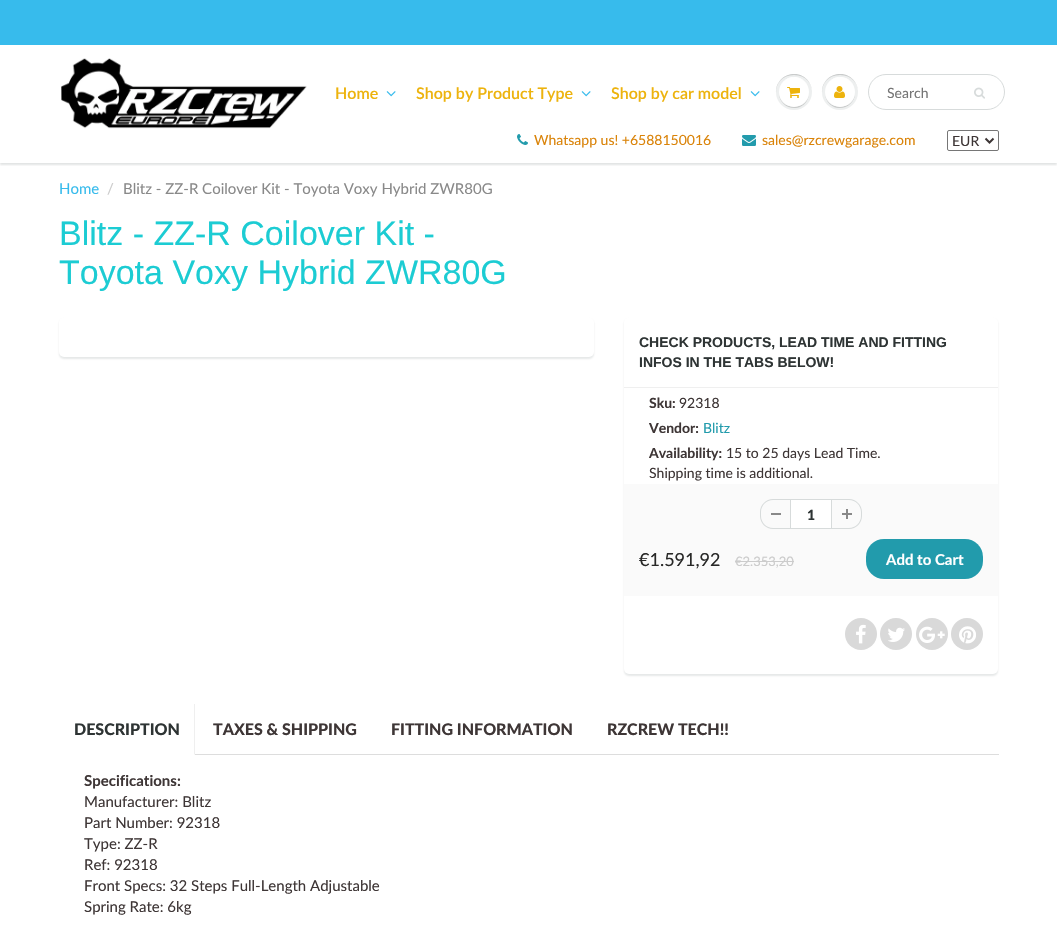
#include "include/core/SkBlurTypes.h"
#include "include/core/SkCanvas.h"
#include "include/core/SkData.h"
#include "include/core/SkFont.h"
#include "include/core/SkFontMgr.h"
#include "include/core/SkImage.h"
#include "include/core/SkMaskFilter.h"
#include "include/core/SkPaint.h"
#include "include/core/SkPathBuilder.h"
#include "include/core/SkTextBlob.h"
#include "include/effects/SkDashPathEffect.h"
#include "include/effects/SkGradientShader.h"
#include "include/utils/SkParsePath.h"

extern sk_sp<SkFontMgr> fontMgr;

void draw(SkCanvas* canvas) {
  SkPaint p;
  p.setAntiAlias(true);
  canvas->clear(SK_ColorWHITE);
  p.setColor(SkColorSetRGB(55, 187, 236));
  canvas->drawRect(SkRect::MakeLTRB(0, 0, 1057, 45), p);
  canvas->save();
  canvas->clipRect(SkRect::MakeLTRB(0, 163, 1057, 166));
  p.setColor(SkColorSetARGB(31, 11, 25, 28));
  p.setMaskFilter(SkMaskFilter::MakeBlur(kNormal_SkBlurStyle, 1));
  canvas->drawRect(SkRect::MakeLTRB(0, 47, 1057, 165), p);
  p.setMaskFilter(nullptr);
  canvas->restore();
  canvas->drawImageRect(SkImages::DeferredFromEncodedData(SkData::MakeFromFileName("images/1.png")), SkRect::MakeLTRB(61, 58, 307, 129), SkSamplingOptions());
  canvas->drawImageRect(SkImages::DeferredFromEncodedData(SkData::MakeFromFileName("images/2.png")), SkRect::MakeLTRB(386, 91, 396, 97), SkSamplingOptions());
  canvas->drawImageRect(SkImages::DeferredFromEncodedData(SkData::MakeFromFileName("images/2.png")), SkRect::MakeLTRB(581, 91, 591, 97), SkSamplingOptions());
  canvas->drawImageRect(SkImages::DeferredFromEncodedData(SkData::MakeFromFileName("images/2.png")), SkRect::MakeLTRB(750, 91, 760, 97), SkSamplingOptions());
  p.setColor(SkColorSetRGB(237, 239, 239));
  canvas->drawCircle(794, 92, 18, p);
  p.setColor(SkColorSetRGB(201, 203, 203));
  canvas->drawPath(SkPathBuilder().moveTo(794, 75).cubicTo(806, 75, 812, 83.5f, 812, 92.5f).cubicTo(812, 89, 811, 85, 809, 82).cubicTo(799, 67, 775.5f, 74.5f, 776, 92.5f).cubicTo(776, 83.5f, 782, 75, 794, 75).close().detach(), p);
  canvas->drawPath(SkPathBuilder().moveTo(809, 92.5f).cubicTo(808.5f, 111.5f, 779.5f, 111.5f, 779, 92.5f).cubicTo(778.5f, 107.5f, 798, 114, 806.5f, 101.5f).cubicTo(808, 99, 809, 95.5f, 809, 92.5f).close().detach(), p);
  p.setColor(SK_ColorWHITE);
  canvas->drawCircle(794, 92, 15, p);
  canvas->drawPath(SkPathBuilder().moveTo(794, 78).cubicTo(804, 78, 809, 85, 809, 92.5f).cubicTo(809, 89.5f, 808, 86, 806.5f, 83.5f).cubicTo(798, 71, 778.5f, 77.5f, 779, 92.5f).cubicTo(779, 85, 784, 78, 794, 78).close().detach(), p);
  canvas->drawImageRect(SkImages::DeferredFromEncodedData(SkData::MakeFromFileName("images/3.png")), SkRect::MakeLTRB(787, 87, 800, 98), SkSamplingOptions());
  p.setColor(SkColorSetRGB(237, 239, 239));
  canvas->drawCircle(840, 92, 18, p);
  p.setColor(SkColorSetRGB(201, 203, 203));
  canvas->drawPath(SkPathBuilder().moveTo(840, 75).cubicTo(852, 75, 858, 83.5f, 858, 92.5f).cubicTo(858, 89, 857, 85, 855, 82).cubicTo(845, 67, 821.5f, 74.5f, 822, 92.5f).cubicTo(822, 83.5f, 828, 75, 840, 75).close().detach(), p);
  canvas->drawPath(SkPathBuilder().moveTo(855, 92.5f).cubicTo(854.5f, 111.5f, 825.5f, 111.5f, 825, 92.5f).cubicTo(825, 95.5f, 826, 99, 827.5f, 101.5f).cubicTo(836, 114, 855.5f, 107.5f, 855, 92.5f).close().detach(), p);
  p.setColor(SK_ColorWHITE);
  canvas->drawCircle(840, 92, 15, p);
  canvas->drawPath(SkPathBuilder().moveTo(840, 78).cubicTo(850, 78, 855, 85, 855, 92.5f).cubicTo(855, 89.5f, 854, 86, 852.5f, 83.5f).cubicTo(844, 71, 824.5f, 77.5f, 825, 92.5f).cubicTo(825, 85, 830, 78, 840, 78).close().detach(), p);
  canvas->drawImageRect(SkImages::DeferredFromEncodedData(SkData::MakeFromFileName("images/4.png")), SkRect::MakeLTRB(834, 86, 845, 98), SkSamplingOptions());
  p.setStyle(SkPaint::kStroke_Style);
  p.setStrokeWidth(1);
  p.setColor(SkColorSetRGB(215, 219, 219));
  canvas->drawRoundRect(SkRect::MakeLTRB(868.5f, 74.5f, 1004.5f, 109.5f), 17.5f, 17.5f, p);
  canvas->drawImageRect(SkImages::DeferredFromEncodedData(SkData::MakeFromFileName("images/5.png")), SkRect::MakeLTRB(974, 87, 985, 99), SkSamplingOptions());
  canvas->drawImageRect(SkImages::DeferredFromEncodedData(SkData::MakeFromFileName("images/6.png")), SkRect::MakeLTRB(517, 134, 528, 145), SkSamplingOptions());
  canvas->drawImageRect(SkImages::DeferredFromEncodedData(SkData::MakeFromFileName("images/7.png")), SkRect::MakeLTRB(742, 135, 756, 146), SkSamplingOptions());
  p.setColor(SkColorSetRGB(118, 118, 118));
  canvas->drawRoundRect(SkRect::MakeLTRB(947.5f, 130.5f, 998.5f, 150.5f), 1.5f, 1.5f, p);
  p.setStrokeWidth(2);
  p.setColor(SkColorSetRGB(62, 54, 54));
  canvas->drawPath(SkPathBuilder().moveTo(985.5f, 138.5f).lineTo(989.5f, 142.5f).lineTo(993.5f, 138.5f).detach(), p);
  p.setStyle(SkPaint::kFill_Style);
  p.setColor(SkColorSetARGB(26, 11, 25, 28));
  p.setMaskFilter(SkMaskFilter::MakeBlur(kNormal_SkBlurStyle, 1));
  canvas->drawRoundRect(SkRect::MakeLTRB(59, 319, 594, 359), 5, 5, p);
  p.setMaskFilter(nullptr);
  p.setColor(SK_ColorWHITE);
  canvas->drawRoundRect(SkRect::MakeLTRB(59, 317, 594, 357), 5, 5, p);
  p.setColor(SkColorSetARGB(26, 11, 25, 28));
  p.setMaskFilter(SkMaskFilter::MakeBlur(kNormal_SkBlurStyle, 1));
  canvas->drawRoundRect(SkRect::MakeLTRB(624, 319, 998, 676), 5, 5, p);
  p.setMaskFilter(nullptr);
  p.setColor(SK_ColorWHITE);
  canvas->drawRoundRect(SkRect::MakeLTRB(624, 317, 998, 674), 5, 5, p);
  p.setColor(SkColorSetRGB(239, 239, 239));
  canvas->drawRect(SkRect::MakeLTRB(624, 387, 998, 388), p);
  p.setColor(SkColorSetRGB(250, 250, 250));
  canvas->drawRect(SkRect::MakeLTRB(624, 484, 998, 596), p);
  p.setColor(SkColorSetRGB(137, 137, 137));
  canvas->drawRect(SkRect::MakeLTRB(771, 513, 781, 515), p);
  p.setColor(SkColorSetRGB(215, 219, 219));
  canvas->drawPath(SkPathBuilder(SkPathFillType::kEvenOdd).moveTo(773, 499).lineTo(790, 499).lineTo(790, 529).lineTo(773, 529).cubicTo(766, 529, 760, 523, 760, 516).lineTo(760, 512).cubicTo(760, 505, 766, 499, 773, 499).close().moveTo(773, 500).lineTo(790, 500).lineTo(790, 528).lineTo(773, 528).cubicTo(766.5f, 528, 761, 522.5f, 761, 516).lineTo(761, 512).cubicTo(761, 505.5f, 766.5f, 500, 773, 500).close().detach(), p);
  p.setColor(SK_ColorWHITE);
  canvas->drawRect(SkRect::MakeLTRB(790.5f, 499.5f, 831.5f, 528.5f), p);
  p.setStyle(SkPaint::kStroke_Style);
  p.setStrokeWidth(1);
  p.setColor(SkColorSetRGB(215, 219, 219));
  canvas->drawRect(SkRect::MakeLTRB(790.5f, 499.5f, 831.5f, 528.5f), p);
  canvas->drawImageRect(SkImages::DeferredFromEncodedData(SkData::MakeFromFileName("images/8.png")), SkRect::MakeLTRB(842, 509, 852, 519), SkSamplingOptions());
  p.setStyle(SkPaint::kFill_Style);
  canvas->drawPath(SkPathBuilder(SkPathFillType::kEvenOdd).moveTo(832, 499).lineTo(849, 499).cubicTo(856, 499, 862, 505, 862, 512).lineTo(862, 516).cubicTo(862, 523, 856, 529, 849, 529).lineTo(832, 529).close().moveTo(832, 500).lineTo(849, 500).cubicTo(855.5f, 500, 861, 505.5f, 861, 512).lineTo(861, 516).cubicTo(861, 522.5f, 855.5f, 528, 849, 528).lineTo(832, 528).close().detach(), p);
  p.setColor(SkColorSetRGB(204, 204, 204));
  canvas->drawRect(SkRect::MakeLTRB(735, 561, 794, 562), p);
  p.setColor(SkColorSetRGB(34, 155, 172));
  canvas->drawRoundRect(SkRect::MakeLTRB(866, 539, 983, 579), 18, 18, p);
  p.setColor(SkColorSetRGB(217, 217, 217));
  canvas->drawCircle(861, 634, 16, p);
  canvas->drawImageRect(SkImages::DeferredFromEncodedData(SkData::MakeFromFileName("images/9.png")), SkRect::MakeLTRB(856, 624, 866, 644), SkSamplingOptions());
  canvas->drawCircle(896, 634, 16, p);
  canvas->drawImageRect(SkImages::DeferredFromEncodedData(SkData::MakeFromFileName("images/10.png")), SkRect::MakeLTRB(888, 627, 905, 642), SkSamplingOptions());
  canvas->drawCircle(932, 634, 16, p);
  canvas->drawImageRect(SkImages::DeferredFromEncodedData(SkData::MakeFromFileName("images/11.png")), SkRect::MakeLTRB(919, 626, 945, 643), SkSamplingOptions());
  canvas->drawCircle(967, 634, 16, p);
  canvas->drawImageRect(SkImages::DeferredFromEncodedData(SkData::MakeFromFileName("images/12.png")), SkRect::MakeLTRB(959, 626, 976, 644), SkSamplingOptions());
  p.setColor(SkColorSetRGB(221, 221, 221));
  canvas->drawRect(SkRect::MakeLTRB(195, 754, 999, 755), p);
  p.setColor(SkColorSetRGB(239, 239, 239));
  canvas->drawPath(SkPathBuilder().moveTo(195, 704).lineTo(195, 755).lineTo(194, 754).lineTo(194, 704).close().detach(), p);
  SkFont font1(fontMgr->matchFamilyStyle("Lato", SkFontStyle(600, SkFontStyle::kNormal_Width, SkFontStyle::kUpright_Slant)), 16);
  font1.setSubpixel(true);
  p.setColor(SkColorSetRGB(237, 179, 13));
  canvas->drawString("Home", 335, 99, font1, p);
  canvas->drawString("Shop by Product Type", 416, 99, font1, p);
  canvas->drawString("Shop by car model", 611, 99, font1, p);
  SkFont font2(fontMgr->matchFamilyStyle("Lato", SkFontStyle::Normal()), 14);
  font2.setSubpixel(true);
  p.setColor(SkColorSetRGB(117, 117, 117));
  canvas->drawString("Search", 887, 98, font2, p);
  p.setColor(SkColorSetRGB(218, 131, 8));
  canvas->drawString("Whatsapp us! +6588150016", 534, 145, font2, p);
  canvas->drawString("sales@rzcrewgarage.com", 762, 145, font2, p);
  p.setColor(SkColorSetRGB(62, 54, 54));
  canvas->drawString("EUR", 952, 146, font2, p);
  SkFont font3(fontMgr->matchFamilyStyle("Lato", SkFontStyle::Normal()), 15);
  font3.setSubpixel(true);
  p.setColor(SkColorSetRGB(55, 187, 236));
  canvas->drawString("Home", 59, 194, font3, p);
  p.setColor(SkColorSetRGB(204, 204, 204));
  canvas->drawString("/", 107, 194, font3, p);
  p.setColor(SkColorSetRGB(137, 137, 137));
  canvas->drawString("Blitz - ZZ-R Coilover Kit - Toyota Voxy Hybrid ZWR80G", 123, 194, font3, p);
  SkFont font4(fontMgr->matchFamilyStyle("Liberation Sans", SkFontStyle::Normal()), 34);
  font4.setSubpixel(true);
  p.setColor(SkColorSetRGB(28, 204, 211));
  canvas->drawString("Blitz - ZZ-R Coilover Kit -", 59, 245, font4, p);
  canvas->drawString("Toyota Voxy Hybrid ZWR80G", 59, 284, font4, p);
  SkFont font5(fontMgr->matchFamilyStyle("Liberation Sans", SkFontStyle::Bold()), 14);
  font5.setSubpixel(true);
  p.setColor(SkColorSetRGB(46, 52, 52));
  canvas->drawString("CHECK PRODUCTS, LEAD TIME AND FITTING", 639, 347, font5, p);
  canvas->drawString("INFOS IN THE TABS BELOW!", 639, 367, font5, p);
  SkFont font6(fontMgr->matchFamilyStyle("Lato", SkFontStyle::Bold()), 14);
  font6.setSubpixel(true);
  p.setColor(SkColorSetRGB(62, 54, 54));
  canvas->drawString("Sku:", 649, 408, font6, p);
  canvas->drawString("92318", 679, 408, font2, p);
  canvas->drawString("Vendor:", 649, 433, font6, p);
  p.setColor(SkColorSetRGB(34, 155, 172));
  canvas->drawString("Blitz", 703, 433, font2, p);
  p.setColor(SkColorSetRGB(62, 54, 54));
  canvas->drawString("Availability:", 649, 458, font6, p);
  canvas->drawString("15 to 25 days Lead Time.", 726, 458, font2, p);
  canvas->drawString("Shipping time is additional.", 649, 478, font2, p);
  SkFont font7(fontMgr->matchFamilyStyle("Lato", SkFontStyle(900, SkFontStyle::kNormal_Width, SkFontStyle::kUpright_Slant)), 14);
  font7.setSubpixel(true);
  p.setColor(SkColorSetRGB(46, 52, 52));
  canvas->drawString("1", 807, 520, font7, p);
  SkFont font8(fontMgr->matchFamilyStyle("Lato", SkFontStyle::Normal()), 18);
  font8.setSubpixel(true);
  p.setColor(SkColorSetRGB(40, 40, 39));
  canvas->drawString("€1.591,92", 639, 566, font8, p);
  SkFont font9(fontMgr->matchFamilyStyle("Lato", SkFontStyle::Normal()), 13);
  font9.setSubpixel(true);
  p.setColor(SkColorSetRGB(204, 204, 204));
  canvas->drawString("€2.353,20", 735, 566, font9, p);
  SkFont font10(fontMgr->matchFamilyStyle("Lato", SkFontStyle::Bold()), 15);
  font10.setSubpixel(true);
  p.setColor(SK_ColorWHITE);
  canvas->drawString("Add to Cart", 886, 565, font10, p);
  SkFont font11(fontMgr->matchFamilyStyle("Lato", SkFontStyle(900, SkFontStyle::kNormal_Width, SkFontStyle::kUpright_Slant)), 16);
  font11.setSubpixel(true);
  p.setColor(SkColorSetRGB(46, 52, 52));
  canvas->drawString("DESCRIPTION", 74, 735, font11, p);
  p.setColor(SkColorSetRGB(62, 54, 54));
  canvas->drawString("TAXES & SHIPPING", 213, 735, font11, p);
  canvas->drawString("FITTING INFORMATION", 391, 735, font11, p);
  canvas->drawString("RZCREW TECH!!", 607, 735, font11, p);
  canvas->drawString("Specifications:", 84, 786, font10, p);
  canvas->drawString("Manufacturer: Blitz", 84, 807, font3, p);
  canvas->drawString("Part Number: 92318", 84, 828, font3, p);
  canvas->drawString("Type: ZZ-R", 84, 849, font3, p);
  canvas->drawString("Ref: 92318", 84, 870, font3, p);
  canvas->drawString("Front Specs: 32 Steps Full-Length Adjustable", 84, 891, font3, p);
  canvas->drawString("Spring Rate: 6kg", 84, 912, font3, p);
}
